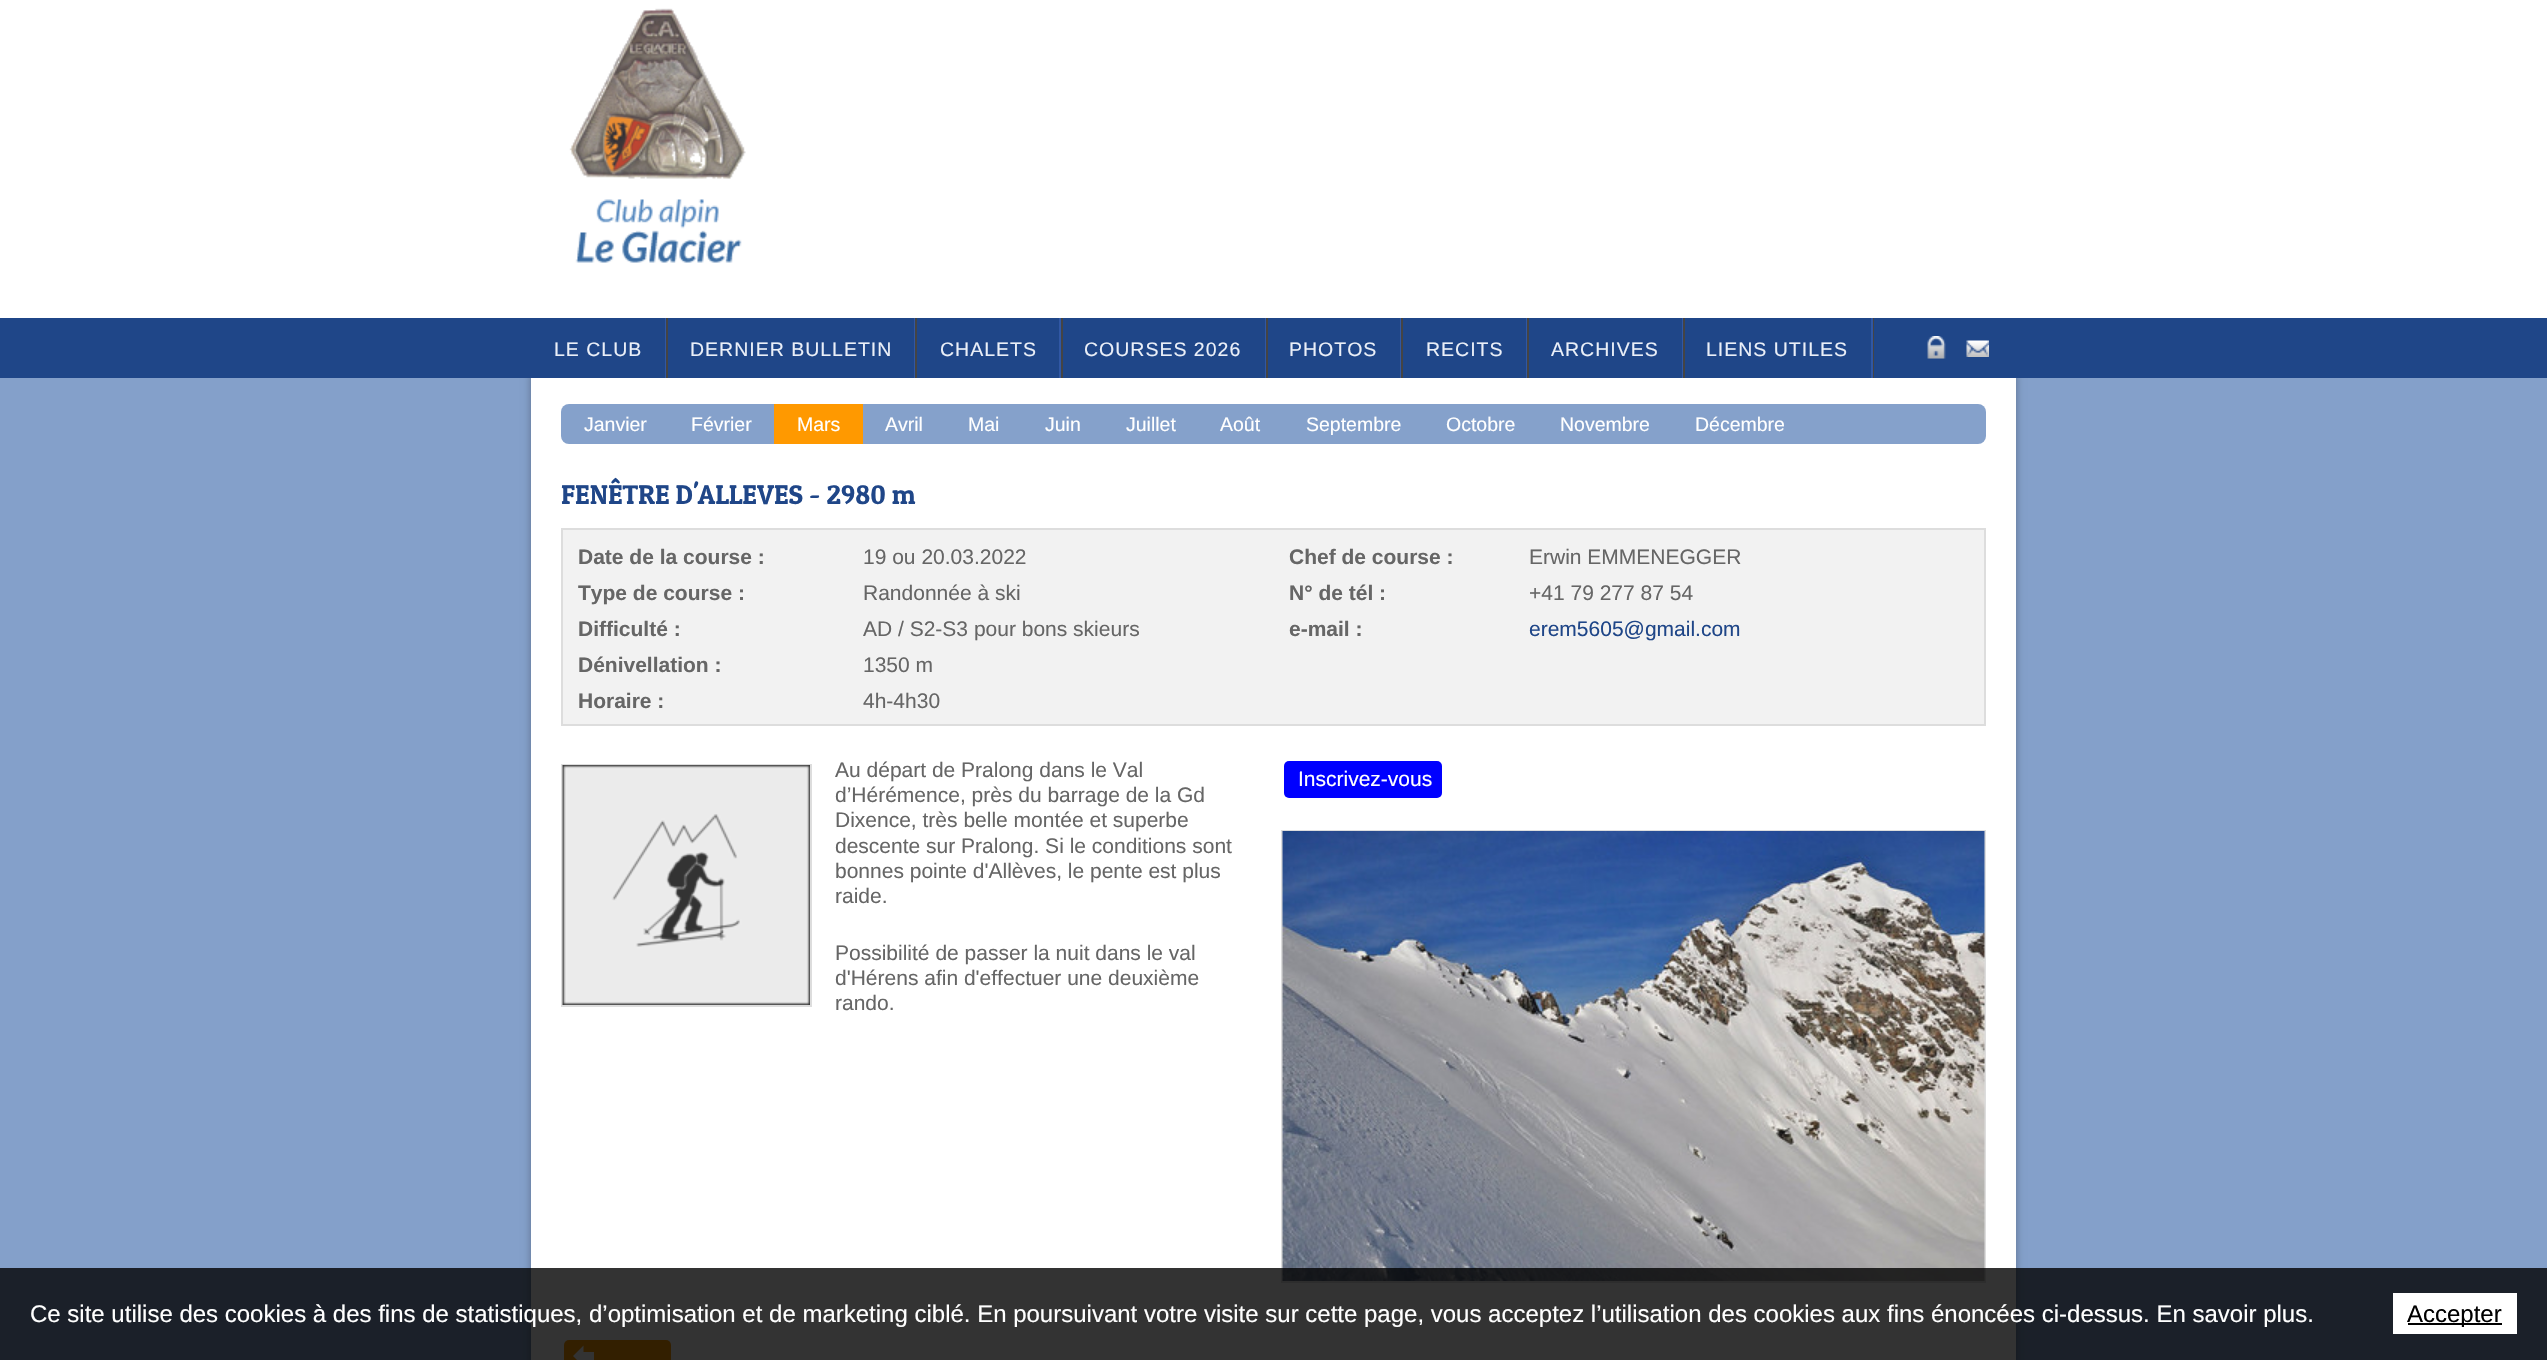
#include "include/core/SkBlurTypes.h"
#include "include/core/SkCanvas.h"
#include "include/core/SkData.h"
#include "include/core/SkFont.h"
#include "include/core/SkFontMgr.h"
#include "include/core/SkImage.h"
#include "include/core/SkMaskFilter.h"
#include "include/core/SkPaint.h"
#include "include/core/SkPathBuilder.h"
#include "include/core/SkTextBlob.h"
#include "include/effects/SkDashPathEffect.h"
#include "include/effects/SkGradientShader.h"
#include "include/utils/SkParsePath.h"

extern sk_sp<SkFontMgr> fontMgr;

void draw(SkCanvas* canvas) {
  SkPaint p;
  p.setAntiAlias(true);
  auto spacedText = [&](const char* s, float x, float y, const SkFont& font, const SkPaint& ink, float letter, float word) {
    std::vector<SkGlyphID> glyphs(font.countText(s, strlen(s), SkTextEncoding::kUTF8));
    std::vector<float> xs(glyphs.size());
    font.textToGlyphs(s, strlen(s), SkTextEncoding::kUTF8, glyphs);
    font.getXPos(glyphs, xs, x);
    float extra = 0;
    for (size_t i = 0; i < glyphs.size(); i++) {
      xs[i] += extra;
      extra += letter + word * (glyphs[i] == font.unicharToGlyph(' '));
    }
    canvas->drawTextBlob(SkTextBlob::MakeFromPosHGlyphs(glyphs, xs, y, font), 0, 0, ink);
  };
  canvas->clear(SK_ColorWHITE);
  canvas->drawImageRect(SkImages::DeferredFromEncodedData(SkData::MakeFromFileName("images/1.png")), SkRect::MakeLTRB(569, 8, 746, 263), SkSamplingOptions());
  p.setColor(SkColorSetRGB(132, 160, 202));
  canvas->drawRect(SkRect::MakeLTRB(0, 378, 2547, 1360), p);
  p.setColor(SkColorSetARGB(77, 0, 0, 0));
  p.setMaskFilter(SkMaskFilter::MakeBlur(kNormal_SkBlurStyle, 4));
  canvas->drawRect(SkRect::MakeLTRB(531, 374, 2016, 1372), p);
  p.setMaskFilter(nullptr);
  p.setColor(SkColorSetRGB(31, 70, 136));
  canvas->drawRect(SkRect::MakeLTRB(0, 318, 2547, 378), p);
  canvas->drawImageRect(SkImages::DeferredFromEncodedData(SkData::MakeFromFileName("images/2.png")), SkRect::MakeLTRB(1927, 336, 1946, 359), SkSamplingOptions());
  canvas->drawImageRect(SkImages::DeferredFromEncodedData(SkData::MakeFromFileName("images/3.png")), SkRect::MakeLTRB(1966, 340, 1989, 357), SkSamplingOptions());
  p.setColor(SkColorSetRGB(48, 87, 164));
  canvas->drawRect(SkRect::MakeLTRB(665, 318, 666, 378), p);
  canvas->drawRect(SkRect::MakeLTRB(914, 318, 915, 378), p);
  p.setColor(SkColorSetRGB(68, 68, 68));
  canvas->drawRect(SkRect::MakeLTRB(666, 318, 668, 378), p);
  p.setColor(SkColorSetRGB(48, 87, 164));
  canvas->drawRect(SkRect::MakeLTRB(1059, 318, 1061, 378), p);
  p.setColor(SkColorSetRGB(68, 68, 68));
  canvas->drawRect(SkRect::MakeLTRB(915, 318, 917, 378), p);
  p.setColor(SkColorSetRGB(48, 87, 164));
  canvas->drawRect(SkRect::MakeLTRB(1265, 318, 1266, 378), p);
  p.setColor(SkColorSetRGB(68, 68, 68));
  canvas->drawRect(SkRect::MakeLTRB(1061, 318, 1063, 378), p);
  p.setColor(SkColorSetRGB(48, 87, 164));
  canvas->drawRect(SkRect::MakeLTRB(1400, 318, 1401, 378), p);
  p.setColor(SkColorSetRGB(68, 68, 68));
  canvas->drawRect(SkRect::MakeLTRB(1266, 318, 1268, 378), p);
  p.setColor(SkColorSetRGB(48, 87, 164));
  canvas->drawRect(SkRect::MakeLTRB(1526, 318, 1527, 378), p);
  p.setColor(SkColorSetRGB(68, 68, 68));
  canvas->drawRect(SkRect::MakeLTRB(1401, 318, 1403, 378), p);
  p.setColor(SkColorSetRGB(48, 87, 164));
  canvas->drawRect(SkRect::MakeLTRB(1682, 318, 1683, 378), p);
  p.setColor(SkColorSetRGB(68, 68, 68));
  canvas->drawRect(SkRect::MakeLTRB(1527, 318, 1529, 378), p);
  canvas->drawRect(SkRect::MakeLTRB(1873, 318, 1874, 378), p);
  p.setColor(SkColorSetRGB(48, 87, 164));
  canvas->drawRect(SkRect::MakeLTRB(1871, 318, 1873, 378), p);
  p.setColor(SkColorSetRGB(68, 68, 68));
  canvas->drawRect(SkRect::MakeLTRB(1683, 318, 1685, 378), p);
  p.setColor(SK_ColorWHITE);
  canvas->drawRect(SkRect::MakeLTRB(531, 378, 2016, 1360), p);
  p.setColor(SkColorSetRGB(133, 161, 203));
  canvas->drawRoundRect(SkRect::MakeLTRB(561, 404, 1986, 444), 8, 8, p);
  p.setColor(SkColorSetRGB(255, 153, 0));
  canvas->drawRect(SkRect::MakeLTRB(774, 404, 863, 444), p);
  p.setColor(SkColorSetRGB(242, 242, 242));
  canvas->drawRect(SkRect::MakeLTRB(562, 529, 1985, 725), p);
  p.setStyle(SkPaint::kStroke_Style);
  p.setStrokeWidth(2);
  p.setColor(SkColorSetRGB(221, 221, 221));
  canvas->drawRect(SkRect::MakeLTRB(562, 529, 1985, 725), p);
  canvas->drawRect(SkRect::MakeLTRB(562, 765, 811, 1006), p);
  canvas->drawImageRect(SkImages::DeferredFromEncodedData(SkData::MakeFromFileName("images/4.png")), SkRect::MakeLTRB(562, 765, 810, 1005), SkSamplingOptions());
  p.setStyle(SkPaint::kFill_Style);
  p.setColor(SkColorSetRGB(0, 0, 255));
  canvas->drawRoundRect(SkRect::MakeLTRB(1284, 761, 1442, 798), 5, 5, p);
  p.setStyle(SkPaint::kStroke_Style);
  p.setColor(SkColorSetRGB(221, 221, 221));
  canvas->drawRect(SkRect::MakeLTRB(1282, 831, 1985, 1282), p);
  canvas->drawImageRect(SkImages::DeferredFromEncodedData(SkData::MakeFromFileName("images/5.png")), SkRect::MakeLTRB(1282, 831, 1985, 1281), SkSamplingOptions());
  p.setStyle(SkPaint::kFill_Style);
  p.setColor(SkColorSetRGB(255, 153, 0));
  canvas->drawRoundRect(SkRect::MakeLTRB(564, 1340, 671, 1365), 5, 5, p);
  p.setColor(SK_ColorWHITE);
  canvas->drawPath(SkPathBuilder().moveTo(573, 1356).lineTo(583.5f, 1345.5f).lineTo(583.5f, 1352).lineTo(594, 1352).lineTo(594, 1360).lineTo(583.5f, 1360).lineTo(583.5f, 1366.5f).close().detach(), p);
  p.setColor(SkColorSetARGB(204, 0, 0, 0));
  canvas->drawRect(SkRect::MakeLTRB(0, 1268, 2547, 1360), p);
  p.setColor(SK_ColorWHITE);
  canvas->drawRect(SkRect::MakeLTRB(2393, 1293, 2517, 1334), p);
  p.setColor(SK_ColorBLACK);
  canvas->drawRect(SkRect::MakeLTRB(2408, 1323, 2502, 1325), p);
  SkFont font1(fontMgr->matchFamilyStyle("Liberation Sans", SkFontStyle::Normal()), 19.5f);
  font1.setSubpixel(true);
  p.setColor(SkColorSetRGB(234, 239, 248));
  spacedText("LE CLUB", 554, 356, font1, p, 1, 0);
  spacedText("DERNIER BULLETIN", 690, 356, font1, p, 1, 0);
  spacedText("CHALETS", 940, 356, font1, p, 1, 0);
  spacedText("COURSES 2026", 1084, 356, font1, p, 1, 0);
  spacedText("PHOTOS", 1289, 356, font1, p, 1, 0);
  spacedText("RECITS", 1426, 356, font1, p, 1, 0);
  spacedText("ARCHIVES", 1551, 356, font1, p, 1, 0);
  spacedText("LIENS UTILES", 1706, 356, font1, p, 1, 0);
  p.setColor(SK_ColorWHITE);
  canvas->drawString("Janvier", 584, 431, font1, p);
  canvas->drawString("Février", 691, 431, font1, p);
  canvas->drawString("Mars", 797, 431, font1, p);
  canvas->drawString("Avril", 885, 431, font1, p);
  canvas->drawString("Mai", 968, 431, font1, p);
  canvas->drawString("Juin", 1045, 431, font1, p);
  canvas->drawString("Juillet", 1126, 431, font1, p);
  canvas->drawString("Août", 1220, 431, font1, p);
  canvas->drawString("Septembre", 1306, 431, font1, p);
  canvas->drawString("Octobre", 1446, 431, font1, p);
  canvas->drawString("Novembre", 1560, 431, font1, p);
  canvas->drawString("Décembre", 1695, 431, font1, p);
  SkFont font2(fontMgr->matchFamilyStyle("Patua One", SkFontStyle::Normal()), 27);
  font2.setSubpixel(true);
  p.setColor(SkColorSetRGB(31, 70, 136));
  canvas->drawString("FENÊTRE D'ALLEVES - 2980 m", 561, 504, font2, p);
  SkFont font3(fontMgr->matchFamilyStyle("Liberation Sans", SkFontStyle::Bold()), 21);
  font3.setSubpixel(true);
  p.setColor(SkColorSetRGB(102, 102, 102));
  canvas->drawString("Date de la course :", 578, 564, font3, p);
  SkFont font4(fontMgr->matchFamilyStyle("Liberation Sans", SkFontStyle::Normal()), 21);
  font4.setSubpixel(true);
  canvas->drawString("19 ou 20.03.2022", 863, 564, font4, p);
  canvas->drawString("Type de course :", 578, 600, font3, p);
  canvas->drawString("Randonnée à ski", 863, 600, font4, p);
  canvas->drawString("Difficulté :", 578, 636, font3, p);
  canvas->drawString("AD / S2-S3 pour bons skieurs", 863, 636, font4, p);
  canvas->drawString("Dénivellation :", 578, 672, font3, p);
  canvas->drawString("1350 m", 863, 672, font4, p);
  canvas->drawString("Horaire :", 578, 708, font3, p);
  canvas->drawString("4h-4h30", 863, 708, font4, p);
  canvas->drawString("Chef de course :", 1289, 564, font3, p);
  canvas->drawString("Erwin EMMENEGGER", 1529, 564, font4, p);
  canvas->drawString("N° de tél :", 1289, 600, font3, p);
  canvas->drawString("+41 79 277 87 54", 1529, 600, font4, p);
  canvas->drawString("e-mail :", 1289, 636, font3, p);
  p.setColor(SkColorSetRGB(31, 70, 136));
  canvas->drawString("erem5605@gmail.com", 1529, 636, font4, p);
  p.setColor(SkColorSetRGB(102, 102, 102));
  canvas->drawString("Au départ de Pralong dans le Val", 835, 777, font4, p);
  canvas->drawString("d’Hérémence, près du barrage de la Gd", 835, 802, font4, p);
  canvas->drawString("Dixence, très belle montée et superbe", 835, 827, font4, p);
  canvas->drawString("descente sur Pralong. Si le conditions sont", 835, 853, font4, p);
  canvas->drawString("bonnes pointe d'Allèves, le pente est plus", 835, 878, font4, p);
  canvas->drawString("raide.", 835, 903, font4, p);
  canvas->drawString("Possibilité de passer la nuit dans le val", 835, 960, font4, p);
  canvas->drawString("d'Hérens afin d'effectuer une deuxième", 835, 985, font4, p);
  canvas->drawString("rando.", 835, 1010, font4, p);
  p.setColor(SK_ColorWHITE);
  canvas->drawString("Inscrivez-vous", 1298, 786, font4, p);
  SkFont font5(fontMgr->matchFamilyStyle("Liberation Sans", SkFontStyle::Normal()), 24);
  font5.setSubpixel(true);
  canvas->drawString("Ce site utilise des cookies à des fins de statistiques, d’optimisation et de marketing ciblé. En poursuivant votre visite sur cette page, vous acceptez l’utilisation des cookies aux fins énoncées ci-dessus. En savoir plus.", 30, 1322, font5, p);
  p.setColor(SK_ColorBLACK);
  canvas->drawString("Accepter", 2407, 1322, font5, p);
}
